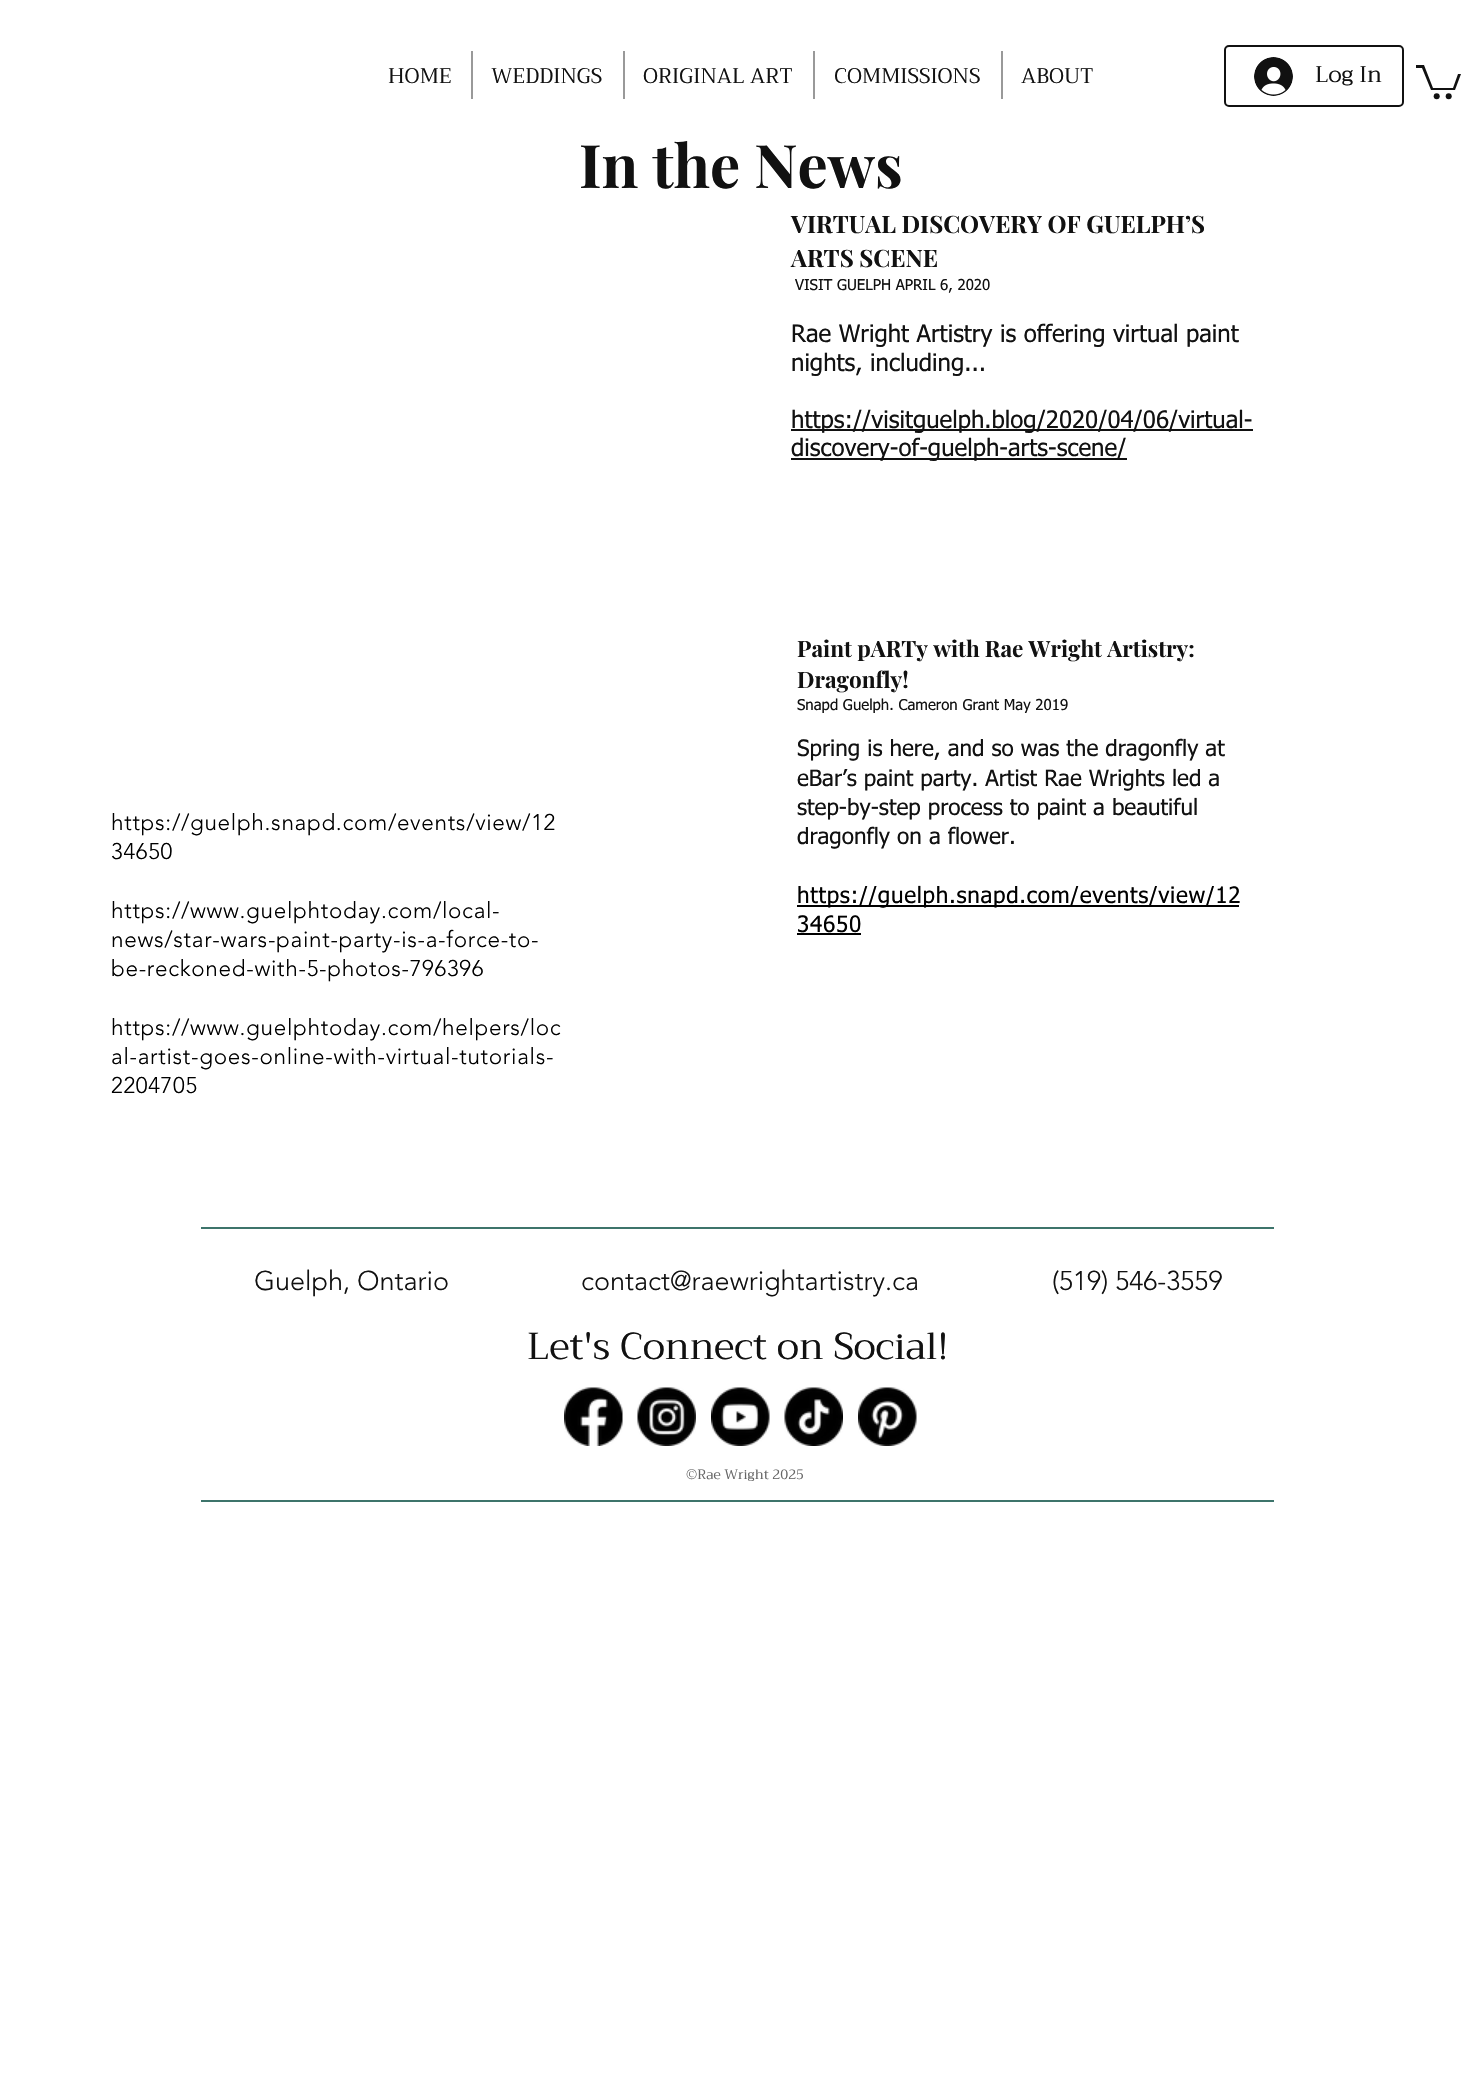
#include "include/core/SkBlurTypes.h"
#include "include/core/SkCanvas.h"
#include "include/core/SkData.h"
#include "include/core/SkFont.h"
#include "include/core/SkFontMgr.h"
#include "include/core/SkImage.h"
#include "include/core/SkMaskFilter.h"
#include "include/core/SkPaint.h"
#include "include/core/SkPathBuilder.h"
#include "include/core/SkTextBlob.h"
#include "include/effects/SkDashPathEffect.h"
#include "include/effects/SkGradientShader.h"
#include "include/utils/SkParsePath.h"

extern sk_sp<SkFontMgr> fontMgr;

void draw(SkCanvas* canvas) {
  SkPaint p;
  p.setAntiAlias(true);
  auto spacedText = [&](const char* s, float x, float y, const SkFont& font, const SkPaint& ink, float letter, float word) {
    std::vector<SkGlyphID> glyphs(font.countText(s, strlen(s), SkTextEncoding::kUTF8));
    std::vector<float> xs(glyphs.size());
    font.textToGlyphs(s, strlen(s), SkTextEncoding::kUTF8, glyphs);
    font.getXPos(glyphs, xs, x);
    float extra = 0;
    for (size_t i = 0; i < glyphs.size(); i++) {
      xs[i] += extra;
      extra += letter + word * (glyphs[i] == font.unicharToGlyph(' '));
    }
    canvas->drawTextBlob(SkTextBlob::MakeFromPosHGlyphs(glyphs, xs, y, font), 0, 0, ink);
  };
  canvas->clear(SK_ColorWHITE);
  p.setColor(SkColorSetRGB(153, 153, 153));
  canvas->drawRect(SkRect::MakeLTRB(471, 51, 473, 99), p);
  canvas->drawRect(SkRect::MakeLTRB(623, 51, 625, 99), p);
  canvas->drawRect(SkRect::MakeLTRB(813, 51, 815, 99), p);
  canvas->drawRect(SkRect::MakeLTRB(1001, 51, 1003, 99), p);
  p.setStyle(SkPaint::kStroke_Style);
  p.setStrokeWidth(2);
  p.setColor(SkColorSetRGB(17, 17, 17));
  canvas->drawRoundRect(SkRect::MakeLTRB(1225, 46, 1403, 106), 4, 4, p);
  canvas->drawImageRect(SkImages::DeferredFromEncodedData(SkData::MakeFromFileName("images/1.png")), SkRect::MakeLTRB(1254, 57, 1293, 96), SkSamplingOptions());
  p.setStyle(SkPaint::kFill_Style);
  canvas->drawPath(SkPathBuilder().moveTo(1461, 74).lineTo(1455, 90).lineTo(1431, 90).lineTo(1422, 68).lineTo(1416, 68).lineTo(1416, 65).lineTo(1424, 65).lineTo(1433, 88).lineTo(1453, 88).lineTo(1458, 74).detach(), p);
  canvas->drawCircle(1448.7f, 96.3f, 3, p);
  canvas->drawCircle(1436.7f, 96.3f, 3, p);
  canvas->drawRect(SkRect::MakeLTRB(791, 429, 1253, 431), p);
  canvas->drawRect(SkRect::MakeLTRB(791, 458, 1127, 460), p);
  p.setColor(SK_ColorBLACK);
  canvas->drawRect(SkRect::MakeLTRB(797, 905, 1239, 907), p);
  canvas->drawRect(SkRect::MakeLTRB(797, 933, 861, 935), p);
  p.setColor(SkColorSetRGB(61, 116, 107));
  canvas->drawRect(SkRect::MakeLTRB(201, 1227, 1274, 1229), p);
  canvas->drawImageRect(SkImages::DeferredFromEncodedData(SkData::MakeFromFileName("images/2.png")), SkRect::MakeLTRB(564, 1387, 623, 1446), SkSamplingOptions());
  canvas->drawImageRect(SkImages::DeferredFromEncodedData(SkData::MakeFromFileName("images/3.png")), SkRect::MakeLTRB(637, 1387, 696, 1446), SkSamplingOptions());
  canvas->drawImageRect(SkImages::DeferredFromEncodedData(SkData::MakeFromFileName("images/4.png")), SkRect::MakeLTRB(711, 1387, 770, 1446), SkSamplingOptions());
  canvas->drawImageRect(SkImages::DeferredFromEncodedData(SkData::MakeFromFileName("images/5.png")), SkRect::MakeLTRB(784, 1387, 843, 1446), SkSamplingOptions());
  canvas->drawImageRect(SkImages::DeferredFromEncodedData(SkData::MakeFromFileName("images/6.png")), SkRect::MakeLTRB(858, 1387, 917, 1446), SkSamplingOptions());
  canvas->drawRect(SkRect::MakeLTRB(201, 1500, 1274, 1502), p);
  SkFont font1(fontMgr->matchFamilyStyle("Trirong", SkFontStyle::Normal()), 21);
  font1.setSubpixel(true);
  p.setColor(SkColorSetRGB(17, 17, 17));
  canvas->drawString("HOME", 388, 83, font1, p);
  canvas->drawString("WEDDINGS", 491, 83, font1, p);
  canvas->drawString("ORIGINAL ART", 643, 83, font1, p);
  canvas->drawString("COMMISSIONS", 834, 83, font1, p);
  canvas->drawString("ABOUT", 1021, 83, font1, p);
  SkFont font2(fontMgr->matchFamilyStyle("Trirong", SkFontStyle::Normal()), 22.5f);
  font2.setSubpixel(true);
  canvas->drawString("Log In", 1315, 82, font2, p);
  SkFont font3(fontMgr->matchFamilyStyle("Playfair Display", SkFontStyle::Bold()), 60);
  font3.setSubpixel(true);
  canvas->drawString("In the News", 579, 188, font3, p);
  SkFont font4(fontMgr->matchFamilyStyle("Playfair Display", SkFontStyle::Bold()), 24);
  font4.setSubpixel(true);
  canvas->drawString("VIRTUAL DISCOVERY OF GUELPH’S", 791, 233, font4, p);
  canvas->drawString("ARTS SCENE", 791, 267, font4, p);
  SkFont font5(fontMgr->matchFamilyStyle("tahoma", SkFontStyle::Normal()), 15);
  font5.setSubpixel(true);
  canvas->drawString("VISIT GUELPH APRIL 6, 2020", 795, 290, font5, p);
  SkFont font6(fontMgr->matchFamilyStyle("tahoma", SkFontStyle::Normal()), 24);
  font6.setSubpixel(true);
  canvas->drawString("Rae Wright Artistry is offering virtual paint", 791, 342, font6, p);
  canvas->drawString("nights, including...", 791, 371, font6, p);
  canvas->drawString("https://visitguelph.blog/2020/04/06/virtual-", 791, 428, font6, p);
  canvas->drawString("discovery-of-guelph-arts-scene/", 791, 456, font6, p);
  SkFont font7(fontMgr->matchFamilyStyle("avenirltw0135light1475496", SkFontStyle(300, SkFontStyle::kNormal_Width, SkFontStyle::kUpright_Slant)), 22.5f);
  font7.setSubpixel(true);
  p.setColor(SK_ColorBLACK);
  spacedText("https://guelph.snapd.com/events/view/12", 111, 830, font7, p, 0.7f, 0);
  spacedText("34650", 111, 859, font7, p, 0.7f, 0);
  spacedText("https://www.guelphtoday.com/local-", 111, 918, font7, p, 0.7f, 0);
  spacedText("news/star-wars-paint-party-is-a-force-to-", 111, 947, font7, p, 0.7f, 0);
  spacedText("be-reckoned-with-5-photos-796396", 111, 976, font7, p, 0.7f, 0);
  spacedText("https://www.guelphtoday.com/helpers/loc", 111, 1035, font7, p, 0.7f, 0);
  spacedText("al-artist-goes-online-with-virtual-tutorials-", 111, 1064, font7, p, 0.7f, 0);
  spacedText("2204705", 111, 1093, font7, p, 0.7f, 0);
  SkFont font8(fontMgr->matchFamilyStyle("Playfair Display", SkFontStyle::Bold()), 22.5f);
  font8.setSubpixel(true);
  p.setColor(SkColorSetRGB(17, 17, 17));
  canvas->drawString("Paint pARTy with Rae Wright Artistry:", 797, 657, font8, p);
  canvas->drawString("Dragonfly!", 797, 688, font8, p);
  canvas->drawString("Snapd Guelph. Cameron Grant May 2019", 797, 710, font5, p);
  SkFont font9(fontMgr->matchFamilyStyle("tahoma", SkFontStyle::Normal()), 22.5f);
  font9.setSubpixel(true);
  canvas->drawString("Spring is here, and so was the dragonfly at", 797, 756, font9, p);
  canvas->drawString("eBar’s paint party. Artist Rae Wrights led a", 797, 786, font9, p);
  canvas->drawString("step-by-step process to paint a beautiful", 797, 815, font9, p);
  canvas->drawString("dragonfly on a flower.", 797, 844, font9, p);
  p.setColor(SK_ColorBLACK);
  spacedText("https://guelph.snapd.com/events/view/12", 797, 903, font9, p, 0.7f, 0);
  spacedText("34650", 797, 932, font9, p, 0.7f, 0);
  SkFont font10(fontMgr->matchFamilyStyle("avenirltw0135light1475496", SkFontStyle(300, SkFontStyle::kNormal_Width, SkFontStyle::kUpright_Slant)), 27);
  font10.setSubpixel(true);
  p.setColor(SkColorSetRGB(17, 17, 17));
  canvas->drawString("Guelph, Ontario", 254, 1290, font10, p);
  canvas->drawString("contact@raewrightartistry.ca", 581, 1290, font10, p);
  canvas->drawString("(519) 546-3559", 1052, 1290, font10, p);
  SkFont font11(fontMgr->matchFamilyStyle("Trirong", SkFontStyle::Normal()), 37.5f);
  font11.setSubpixel(true);
  canvas->drawString("Let's Connect on Social!", 527, 1359, font11, p);
  SkFont font12(fontMgr->matchFamilyStyle("Trirong", SkFontStyle::Normal()), 13.5f);
  font12.setSubpixel(true);
  p.setColor(SkColorSetRGB(102, 102, 102));
  canvas->drawString("©Rae Wright 2025", 686, 1479, font12, p);
}
